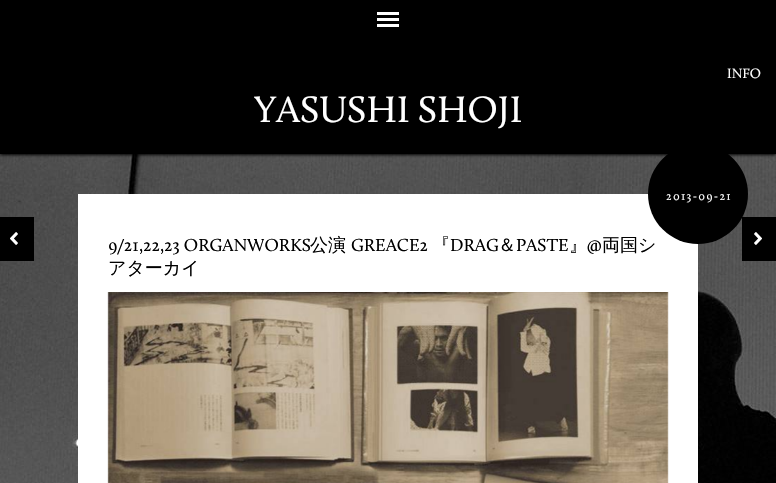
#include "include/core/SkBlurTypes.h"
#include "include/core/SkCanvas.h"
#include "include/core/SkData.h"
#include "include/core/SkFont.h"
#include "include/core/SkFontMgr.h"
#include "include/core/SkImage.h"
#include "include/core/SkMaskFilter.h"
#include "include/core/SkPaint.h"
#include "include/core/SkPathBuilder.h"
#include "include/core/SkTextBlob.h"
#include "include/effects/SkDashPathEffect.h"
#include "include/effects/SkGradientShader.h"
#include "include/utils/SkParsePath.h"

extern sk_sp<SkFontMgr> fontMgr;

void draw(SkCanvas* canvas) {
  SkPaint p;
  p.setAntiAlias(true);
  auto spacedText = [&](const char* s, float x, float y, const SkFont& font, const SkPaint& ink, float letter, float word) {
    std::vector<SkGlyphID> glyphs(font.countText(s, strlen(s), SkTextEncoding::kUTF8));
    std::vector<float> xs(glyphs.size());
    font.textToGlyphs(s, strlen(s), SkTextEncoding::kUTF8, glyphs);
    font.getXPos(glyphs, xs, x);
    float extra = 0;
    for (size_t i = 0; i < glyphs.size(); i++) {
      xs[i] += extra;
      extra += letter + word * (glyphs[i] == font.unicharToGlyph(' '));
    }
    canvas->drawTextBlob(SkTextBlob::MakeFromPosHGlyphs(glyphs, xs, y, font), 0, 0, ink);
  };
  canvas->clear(SK_ColorBLACK);
  p.setColor(SK_ColorWHITE);
  canvas->drawRect(SkRect::MakeLTRB(377, 12, 399, 15), p);
  canvas->drawRect(SkRect::MakeLTRB(377, 18, 399, 21), p);
  canvas->drawRect(SkRect::MakeLTRB(377, 24, 399, 27), p);
  canvas->drawImageRect(SkImages::DeferredFromEncodedData(SkData::MakeFromFileName("images/1.png")), SkRect::MakeLTRB(0, 154, 776, 483), SkSamplingOptions());
  p.setColor(SK_ColorBLACK);
  p.setMaskFilter(SkMaskFilter::MakeBlur(kNormal_SkBlurStyle, 1.5f));
  canvas->drawRect(SkRect::MakeLTRB(0, 51, 776, 155), p);
  p.setMaskFilter(nullptr);
  p.setColor(SK_ColorWHITE);
  canvas->drawRect(SkRect::MakeLTRB(78, 194, 698, 483), p);
  p.setColor(SK_ColorBLACK);
  canvas->drawCircle(698, 194, 50, p);
  canvas->drawImageRect(SkImages::DeferredFromEncodedData(SkData::MakeFromFileName("images/2.png")), SkRect::MakeLTRB(107, 292, 669, 483), SkSamplingOptions());
  canvas->drawRect(SkRect::MakeLTRB(0, 217, 34, 261), p);
  canvas->drawImageRect(SkImages::DeferredFromEncodedData(SkData::MakeFromFileName("images/3.png")), SkRect::MakeLTRB(10, 232, 18, 245), SkSamplingOptions());
  canvas->drawRect(SkRect::MakeLTRB(742, 217, 776, 261), p);
  canvas->drawImageRect(SkImages::DeferredFromEncodedData(SkData::MakeFromFileName("images/4.png")), SkRect::MakeLTRB(754, 232, 762, 245), SkSamplingOptions());
  SkFont font1(fontMgr->matchFamilyStyle("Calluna", SkFontStyle::Normal()), 14);
  font1.setSubpixel(true);
  p.setColor(SK_ColorWHITE);
  canvas->drawString("INFO", 727, 78, font1, p);
  SkFont font2(fontMgr->matchFamilyStyle("Calluna", SkFontStyle::Normal()), 38);
  font2.setSubpixel(true);
  canvas->drawString("YASUSHI SHOJI", 254, 122, font2, p);
  SkFont font3(fontMgr->matchFamilyStyle("Calluna", SkFontStyle::Normal()), 12);
  font3.setSubpixel(true);
  spacedText("2013-09-21", 666, 200, font3, p, 1.25f, 0);
  SkFont font4(fontMgr->matchFamilyStyle("Calluna", SkFontStyle::Normal()), 18);
  font4.setSubpixel(true);
  p.setColor(SK_ColorBLACK);
  canvas->drawString("9/21,22,23 ORGANWORKS", 108, 251, font4, p);
  SkFont font5(fontMgr->matchFamilyStyle("WenQuanYi Zen Hei", SkFontStyle(500, SkFontStyle::kNormal_Width, SkFontStyle::kUpright_Slant)), 18);
  font5.setSubpixel(true);
  canvas->drawString("公演", 310, 251, font5, p);
  canvas->drawString("GREACE2", 351, 251, font4, p);
  canvas->drawString("『", 432, 251, font5, p);
  canvas->drawString("DRAG", 450, 251, font4, p);
  canvas->drawString("＆", 498, 251, font5, p);
  canvas->drawString("PASTE", 516, 251, font4, p);
  canvas->drawString("』", 569, 251, font5, p);
  canvas->drawString("@", 587, 251, font4, p);
  canvas->drawString("両国シ", 602, 251, font5, p);
  canvas->drawString("アターカイ", 108, 274, font5, p);
}
